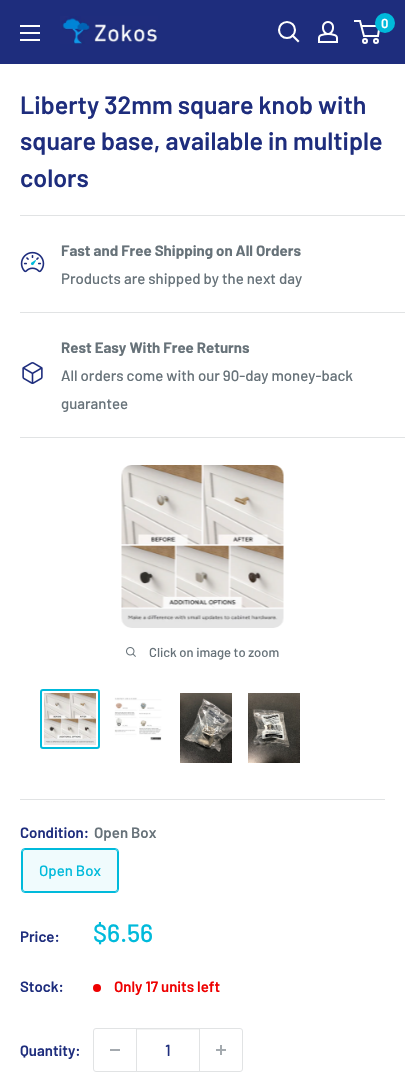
#include "include/core/SkBlurTypes.h"
#include "include/core/SkCanvas.h"
#include "include/core/SkData.h"
#include "include/core/SkFont.h"
#include "include/core/SkFontMgr.h"
#include "include/core/SkImage.h"
#include "include/core/SkMaskFilter.h"
#include "include/core/SkPaint.h"
#include "include/core/SkPathBuilder.h"
#include "include/core/SkTextBlob.h"
#include "include/effects/SkDashPathEffect.h"
#include "include/effects/SkGradientShader.h"
#include "include/utils/SkParsePath.h"

extern sk_sp<SkFontMgr> fontMgr;

void draw(SkCanvas* canvas) {
  SkPaint p;
  p.setAntiAlias(true);
  canvas->clear(SK_ColorWHITE);
  p.setColor(SkColorSetRGB(30, 45, 125));
  canvas->drawRect(SkRect::MakeLTRB(0, 0, 405, 64), p);
  canvas->drawImageRect(SkImages::DeferredFromEncodedData(SkData::MakeFromFileName("images/1.png")), SkRect::MakeLTRB(60, 16, 158, 44), SkSamplingOptions());
  p.setStyle(SkPaint::kStroke_Style);
  p.setStrokeWidth(2.1f);
  p.setStrokeCap(SkPaint::kSquare_Cap);
  p.setColor(SK_ColorWHITE);
  canvas->drawPath(SkPathBuilder().moveTo(298, 41).lineTo(292.5f, 35.5f).detach(), p);
  p.setStrokeCap(SkPaint::kButt_Cap);
  canvas->drawCircle(287, 30, 8, p);
  canvas->drawImageRect(SkImages::DeferredFromEncodedData(SkData::MakeFromFileName("images/2.png")), SkRect::MakeLTRB(318, 21, 338, 43), SkSamplingOptions());
  p.setStrokeWidth(2);
  canvas->drawCircle(365, 41, 2, p);
  canvas->drawCircle(376, 41, 2, p);
  canvas->drawPath(SkPathBuilder().moveTo(361.5f, 26).lineTo(379.5f, 26).lineTo(378, 36).lineTo(364, 36).lineTo(360, 21).lineTo(354, 21).detach(), p);
  p.setStyle(SkPaint::kFill_Style);
  p.setColor(SkColorSetRGB(0, 186, 219));
  canvas->drawCircle(385, 23, 10, p);
  canvas->drawImageRect(SkImages::DeferredFromEncodedData(SkData::MakeFromFileName("images/3.png")), SkRect::MakeLTRB(20, 25, 40, 41), SkSamplingOptions());
  p.setColor(SkColorSetRGB(225, 227, 228));
  canvas->drawRect(SkRect::MakeLTRB(20, 215, 405, 216), p);
  canvas->drawImageRect(SkImages::DeferredFromEncodedData(SkData::MakeFromFileName("images/4.png")), SkRect::MakeLTRB(20, 251, 45, 273), SkSamplingOptions());
  canvas->drawRect(SkRect::MakeLTRB(20, 312, 405, 313), p);
  canvas->drawImageRect(SkImages::DeferredFromEncodedData(SkData::MakeFromFileName("images/5.png")), SkRect::MakeLTRB(22, 362, 43, 384), SkSamplingOptions());
  canvas->drawRect(SkRect::MakeLTRB(20, 437, 405, 438), p);
  canvas->drawRect(SkRect::MakeLTRB(20, 799, 385, 800), p);
  canvas->drawImageRect(SkImages::DeferredFromEncodedData(SkData::MakeFromFileName("images/6.png")), SkRect::MakeLTRB(121, 465, 284, 628), SkSamplingOptions());
  canvas->drawImageRect(SkImages::DeferredFromEncodedData(SkData::MakeFromFileName("images/7.png")), SkRect::MakeLTRB(126, 647, 136, 657), SkSamplingOptions());
  p.setStyle(SkPaint::kStroke_Style);
  p.setColor(SkColorSetRGB(0, 186, 219));
  canvas->drawRoundRect(SkRect::MakeLTRB(41, 690, 99, 748), 2, 2, p);
  canvas->drawImageRect(SkImages::DeferredFromEncodedData(SkData::MakeFromFileName("images/8.png")), SkRect::MakeLTRB(44, 693, 96, 745), SkSamplingOptions());
  canvas->drawImageRect(SkImages::DeferredFromEncodedData(SkData::MakeFromFileName("images/9.png")), SkRect::MakeLTRB(114, 697, 162, 741), SkSamplingOptions());
  canvas->drawImageRect(SkImages::DeferredFromEncodedData(SkData::MakeFromFileName("images/10.png")), SkRect::MakeLTRB(180, 693, 232, 763), SkSamplingOptions());
  canvas->drawImageRect(SkImages::DeferredFromEncodedData(SkData::MakeFromFileName("images/11.png")), SkRect::MakeLTRB(248, 693, 300, 763), SkSamplingOptions());
  p.setStrokeWidth(1);
  canvas->drawRoundRect(SkRect::MakeLTRB(21.5f, 848.5f, 118.5f, 892.5f), 3.5f, 3.5f, p);
  p.setStyle(SkPaint::kFill_Style);
  p.setColor(SkColorSetARGB(15, 0, 186, 219));
  canvas->drawRect(SkRect::MakeLTRB(22, 849, 118, 892), p);
  p.setStyle(SkPaint::kStroke_Style);
  p.setColor(SkColorSetRGB(0, 186, 219));
  canvas->drawRoundRect(SkRect::MakeLTRB(22.5f, 849.5f, 117.5f, 891.5f), 2.5f, 2.5f, p);
  p.setStyle(SkPaint::kFill_Style);
  p.setColor(SkColorSetRGB(238, 0, 0));
  canvas->drawCircle(97, 988, 4, p);
  p.setStyle(SkPaint::kStroke_Style);
  p.setColor(SkColorSetRGB(225, 227, 228));
  canvas->drawRoundRect(SkRect::MakeLTRB(93.5f, 1028.5f, 242.5f, 1071.5f), 2.5f, 2.5f, p);
  p.setStyle(SkPaint::kFill_Style);
  p.setColor(SkColorSetRGB(164, 170, 175));
  canvas->drawRect(SkRect::MakeLTRB(110, 1049, 120, 1051), p);
  p.setColor(SkColorSetRGB(243, 244, 244));
  canvas->drawRect(SkRect::MakeLTRB(137, 1029, 199, 1030), p);
  p.setColor(SkColorSetRGB(225, 227, 228));
  canvas->drawRect(SkRect::MakeLTRB(199, 1029, 200, 1071), p);
  canvas->drawRect(SkRect::MakeLTRB(136, 1029, 137, 1071), p);
  canvas->drawImageRect(SkImages::DeferredFromEncodedData(SkData::MakeFromFileName("images/12.png")), SkRect::MakeLTRB(216, 1045, 226, 1055), SkSamplingOptions());
  SkFont font1(fontMgr->matchFamilyStyle("Barlow", SkFontStyle(600, SkFontStyle::kNormal_Width, SkFontStyle::kUpright_Slant)), 13);
  font1.setSubpixel(true);
  p.setColor(SK_ColorWHITE);
  canvas->drawString("0", 381, 28, font1, p);
  SkFont font2(fontMgr->matchFamilyStyle("Barlow", SkFontStyle(600, SkFontStyle::kNormal_Width, SkFontStyle::kUpright_Slant)), 25);
  font2.setSubpixel(true);
  p.setColor(SkColorSetRGB(30, 45, 125));
  canvas->drawString("Liberty 32mm square knob with", 20, 114, font2, p);
  canvas->drawString("square base, available in multiple", 20, 150, font2, p);
  canvas->drawString("colors", 20, 187, font2, p);
  SkFont font3(fontMgr->matchFamilyStyle("Barlow", SkFontStyle::Bold()), 15);
  font3.setSubpixel(true);
  p.setColor(SkColorSetRGB(103, 114, 121));
  canvas->drawString("Fast and Free Shipping on All Orders", 61, 256, font3, p);
  SkFont font4(fontMgr->matchFamilyStyle("Barlow", SkFontStyle(500, SkFontStyle::kNormal_Width, SkFontStyle::kUpright_Slant)), 15);
  font4.setSubpixel(true);
  canvas->drawString("Products are shipped by the next day", 61, 284, font4, p);
  canvas->drawString("Rest Easy With Free Returns", 61, 353, font3, p);
  canvas->drawString("All orders come with our 90-day money-back", 61, 381, font4, p);
  canvas->drawString("guarantee", 61, 409, font4, p);
  SkFont font5(fontMgr->matchFamilyStyle("Barlow", SkFontStyle(500, SkFontStyle::kNormal_Width, SkFontStyle::kUpright_Slant)), 13);
  font5.setSubpixel(true);
  canvas->drawString("Click on image to zoom", 149, 657, font5, p);
  SkFont font6(fontMgr->matchFamilyStyle("Barlow", SkFontStyle(600, SkFontStyle::kNormal_Width, SkFontStyle::kUpright_Slant)), 15);
  font6.setSubpixel(true);
  p.setColor(SkColorSetRGB(30, 45, 125));
  canvas->drawString("Condition:", 20, 838, font6, p);
  p.setColor(SkColorSetRGB(103, 114, 121));
  canvas->drawString("Open Box", 94, 838, font6, p);
  p.setColor(SkColorSetRGB(0, 186, 219));
  canvas->drawString("Open Box", 39, 876, font4, p);
  p.setColor(SkColorSetRGB(30, 45, 125));
  canvas->drawString("Price:", 20, 942, font6, p);
  SkFont font7(fontMgr->matchFamilyStyle("Barlow", SkFontStyle(500, SkFontStyle::kNormal_Width, SkFontStyle::kUpright_Slant)), 25);
  font7.setSubpixel(true);
  p.setColor(SkColorSetRGB(0, 186, 219));
  canvas->drawString("$6.56", 93, 942, font7, p);
  p.setColor(SkColorSetRGB(30, 45, 125));
  canvas->drawString("Stock:", 20, 992, font6, p);
  p.setColor(SkColorSetRGB(238, 0, 0));
  canvas->drawString("Only 17 units left", 114, 992, font6, p);
  p.setColor(SkColorSetRGB(30, 45, 125));
  canvas->drawString("Quantity:", 20, 1056, font6, p);
  SkFont font8(fontMgr->matchFamilyStyle("Barlow", SkFontStyle(500, SkFontStyle::kNormal_Width, SkFontStyle::kUpright_Slant)), 16);
  font8.setSubpixel(true);
  canvas->drawString("1", 165, 1056, font8, p);
}
